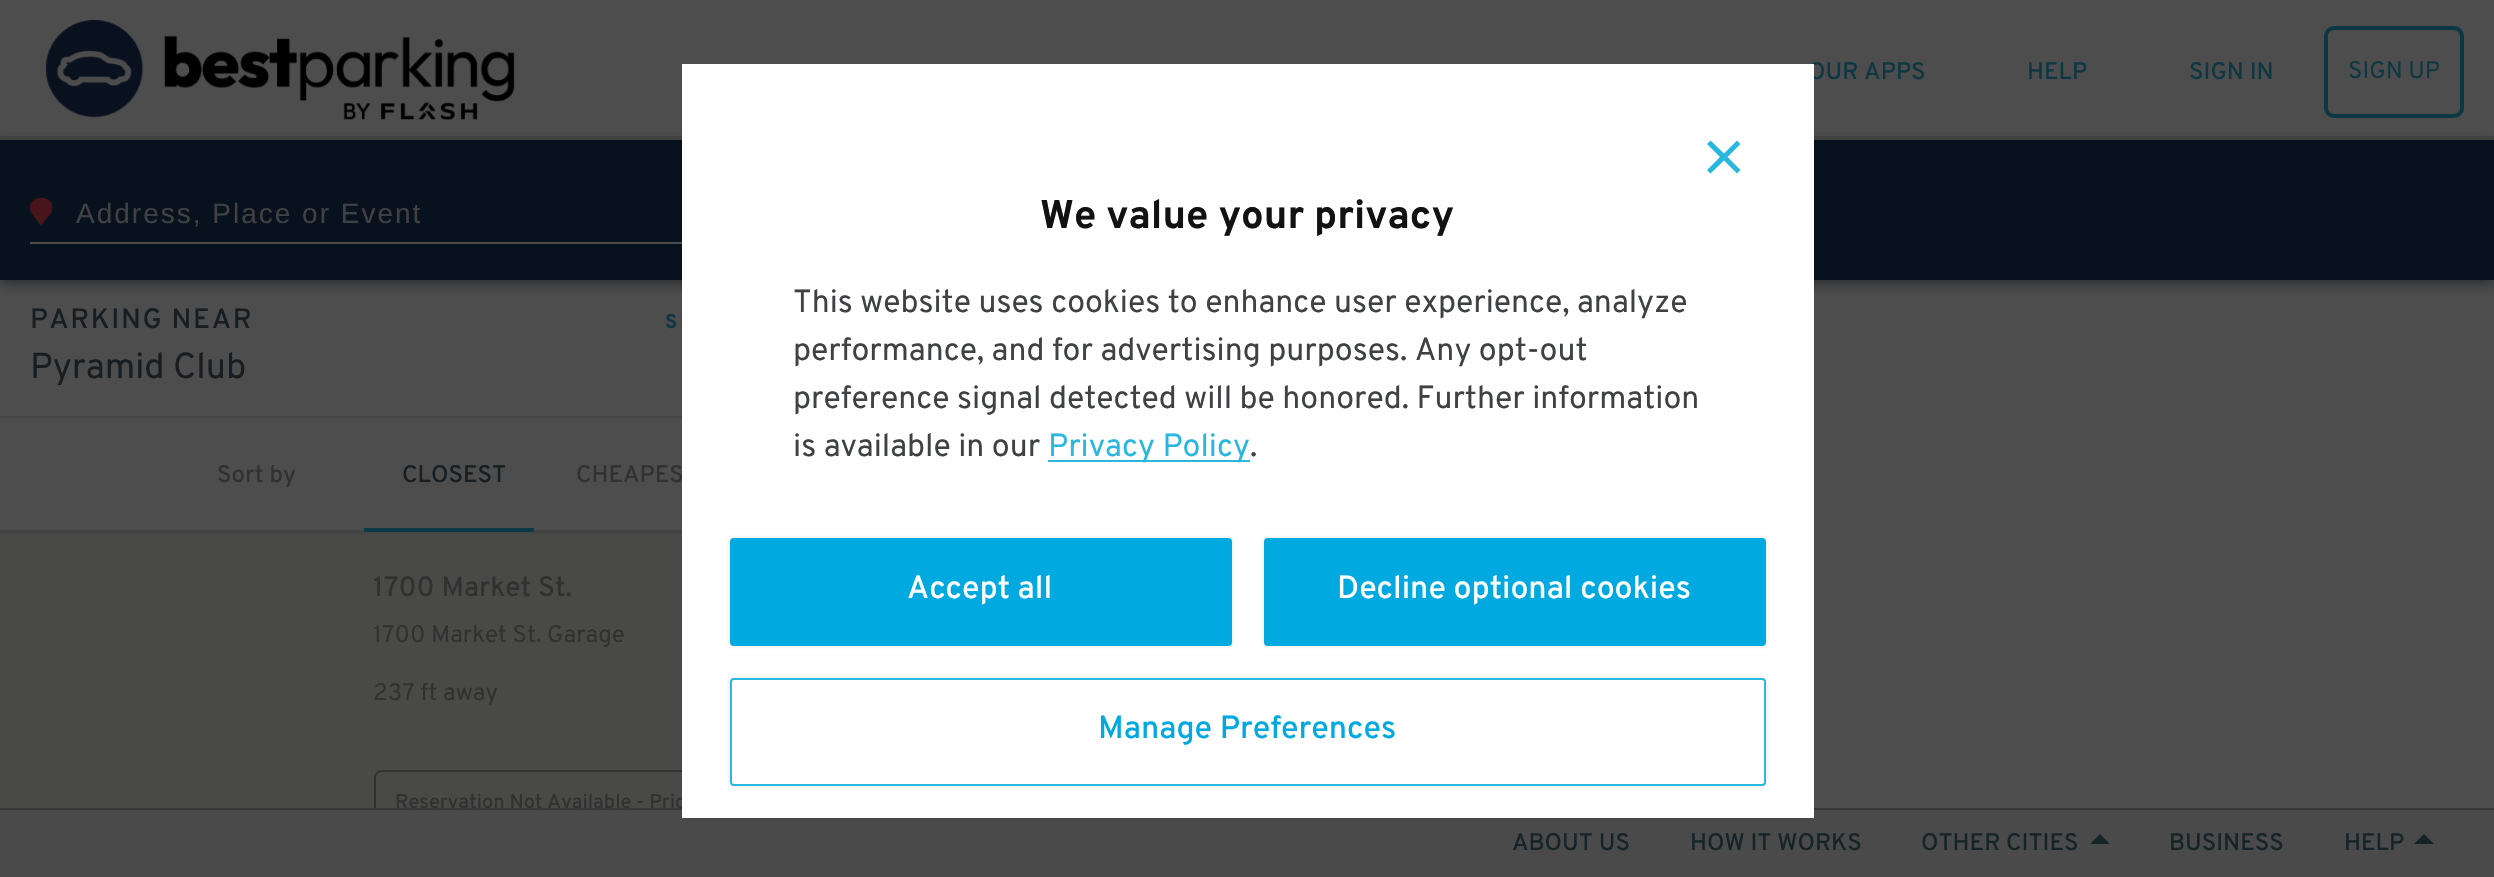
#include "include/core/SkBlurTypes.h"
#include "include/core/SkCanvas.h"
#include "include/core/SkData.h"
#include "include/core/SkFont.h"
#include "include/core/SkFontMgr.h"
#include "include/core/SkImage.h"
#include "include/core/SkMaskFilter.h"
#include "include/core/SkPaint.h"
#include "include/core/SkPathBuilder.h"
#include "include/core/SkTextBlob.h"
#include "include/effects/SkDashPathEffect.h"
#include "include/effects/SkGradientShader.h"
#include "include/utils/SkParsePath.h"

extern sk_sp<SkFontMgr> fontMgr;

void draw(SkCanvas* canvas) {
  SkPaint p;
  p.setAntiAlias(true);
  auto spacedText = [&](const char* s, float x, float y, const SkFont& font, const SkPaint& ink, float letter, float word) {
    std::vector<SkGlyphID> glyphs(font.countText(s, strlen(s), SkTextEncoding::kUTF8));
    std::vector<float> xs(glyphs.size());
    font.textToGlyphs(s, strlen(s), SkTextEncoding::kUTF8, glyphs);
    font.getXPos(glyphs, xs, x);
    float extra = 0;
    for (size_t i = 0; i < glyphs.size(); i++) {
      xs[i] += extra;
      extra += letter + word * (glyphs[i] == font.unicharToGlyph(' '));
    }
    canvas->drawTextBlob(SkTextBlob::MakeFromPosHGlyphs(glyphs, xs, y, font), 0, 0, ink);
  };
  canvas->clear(SkColorSetRGB(77, 77, 77));
  p.setColor(SkColorSetRGB(40, 44, 47));
  p.setMaskFilter(SkMaskFilter::MakeBlur(kNormal_SkBlurStyle, 6));
  canvas->drawRect(SkRect::MakeLTRB(0, 144, 2494, 284), p);
  p.setMaskFilter(nullptr);
  p.setColor(SkColorSetRGB(77, 77, 77));
  canvas->drawRect(SkRect::MakeLTRB(8, 135, 2486, 136), p);
  p.setColor(SkColorSetRGB(65, 65, 65));
  canvas->drawRect(SkRect::MakeLTRB(0, 136, 2494, 140), p);
  canvas->drawImageRect(SkImages::DeferredFromEncodedData(SkData::MakeFromFileName("images/1.png")), SkRect::MakeLTRB(45, 20, 515, 120), SkSamplingOptions());
  p.setStyle(SkPaint::kStroke_Style);
  p.setStrokeWidth(4);
  p.setColor(SkColorSetRGB(13, 55, 67));
  canvas->drawRoundRect(SkRect::MakeLTRB(2326, 28, 2462, 116), 8, 8, p);
  p.setStyle(SkPaint::kFill_Style);
  p.setColor(SkColorSetRGB(8, 17, 30));
  canvas->drawRect(SkRect::MakeLTRB(0, 140, 2494, 280), p);
  p.setColor(SkColorSetRGB(77, 77, 77));
  canvas->drawRect(SkRect::MakeLTRB(30, 242, 52, 244), p);
  p.setColor(SkColorSetRGB(72, 21, 26));
  canvas->drawPath(SkPathBuilder().moveTo(49, 215.5f).lineTo(41, 226).lineTo(34.5f, 217).cubicTo(32.5f, 214.5f, 30.5f, 212.5f, 30, 209).cubicTo(28.5f, 195.5f, 51, 193.5f, 52.5f, 207).cubicTo(52.5f, 210.5f, 51.5f, 213.5f, 49, 215.5f).close().detach(), p);
  p.setColor(SkColorSetRGB(77, 77, 77));
  canvas->drawRect(SkRect::MakeLTRB(52, 242, 682, 244), p);
  p.setColor(SkColorSetRGB(70, 69, 69));
  canvas->drawRect(SkRect::MakeLTRB(0, 416, 682, 418), p);
  canvas->drawRect(SkRect::MakeLTRB(0, 532, 682, 534), p);
  p.setColor(SkColorSetRGB(67, 67, 67));
  canvas->drawRect(SkRect::MakeLTRB(0, 530, 682, 532), p);
  p.setColor(SkColorSetRGB(14, 57, 70));
  canvas->drawRect(SkRect::MakeLTRB(364, 528, 534, 532), p);
  p.setColor(SkColorSetRGB(73, 73, 72));
  canvas->drawRect(SkRect::MakeLTRB(0, 534, 682, 808), p);
  p.setStyle(SkPaint::kStroke_Style);
  p.setStrokeWidth(2);
  p.setColor(SkColorSetRGB(49, 49, 49));
  canvas->drawRoundRect(SkRect::MakeLTRB(375, 771, 935, 835), 7, 7, p);
  p.setStyle(SkPaint::kFill_Style);
  p.setColor(SkColorSetRGB(74, 74, 74));
  canvas->drawRect(SkRect::MakeLTRB(0, 810, 2494, 877), p);
  p.setColor(SkColorSetRGB(56, 56, 56));
  canvas->drawRect(SkRect::MakeLTRB(0, 808, 2494, 810), p);
  p.setColor(SkColorSetRGB(21, 36, 39));
  canvas->drawPath(SkPathBuilder().moveTo(2110, 844).lineTo(2090, 844).lineTo(2100, 834).close().detach(), p);
  canvas->drawPath(SkPathBuilder().moveTo(2434, 844).lineTo(2414, 844).lineTo(2424, 834).close().detach(), p);
  SkFont font1(fontMgr->matchFamilyStyle("Overpass", SkFontStyle(500, SkFontStyle::kNormal_Width, SkFontStyle::kUpright_Slant)), 24);
  font1.setSubpixel(true);
  p.setColor(SkColorSetRGB(13, 55, 67));
  canvas->drawString("OUR APPS", 1808, 79, font1, p);
  canvas->drawString("HELP", 2027, 79, font1, p);
  canvas->drawString("SIGN IN", 2189, 79, font1, p);
  SkFont font2(fontMgr->matchFamilyStyle("Overpass", SkFontStyle::Normal()), 24);
  font2.setSubpixel(true);
  canvas->drawString("SIGN UP", 2348, 78, font2, p);
  SkFont font3(fontMgr->matchFamilyStyle("Liberation Sans", SkFontStyle::Normal()), 28);
  font3.setSubpixel(true);
  p.setColor(SkColorSetRGB(63, 65, 67));
  spacedText("Address, Place or Event", 76, 223, font3, p, 2, 0);
  SkFont font4(fontMgr->matchFamilyStyle("Overpass", SkFontStyle(500, SkFontStyle::kNormal_Width, SkFontStyle::kUpright_Slant)), 28);
  font4.setSubpixel(true);
  p.setColor(SkColorSetRGB(23, 29, 32));
  spacedText("PARKING NEAR", 30, 328, font4, p, 1.6f, 0);
  SkFont font5(fontMgr->matchFamilyStyle("Overpass", SkFontStyle::Bold()), 20);
  font5.setSubpixel(true);
  p.setColor(SkColorSetRGB(13, 55, 67));
  canvas->drawString("S", 665, 328, font5, p);
  SkFont font6(fontMgr->matchFamilyStyle("Overpass", SkFontStyle::Normal()), 36);
  font6.setSubpixel(true);
  p.setColor(SkColorSetRGB(23, 29, 32));
  canvas->drawString("Pyramid Club", 30, 378, font6, p);
  p.setColor(SkColorSetRGB(49, 49, 49));
  canvas->drawString("Sort by", 217, 482, font1, p);
  p.setColor(SkColorSetRGB(23, 29, 32));
  canvas->drawString("CLOSEST", 402, 482, font1, p);
  p.setColor(SkColorSetRGB(49, 49, 49));
  canvas->drawString("CHEAPES", 576, 482, font1, p);
  canvas->drawString("1700 Market St.", 373, 596, font4, p);
  canvas->drawString("1700 Market St. Garage", 373, 642, font2, p);
  canvas->drawString("237 ft away", 373, 700, font2, p);
  SkFont font7(fontMgr->matchFamilyStyle("Overpass", SkFontStyle(500, SkFontStyle::kNormal_Width, SkFontStyle::kUpright_Slant)), 20);
  font7.setSubpixel(true);
  canvas->drawString("Reservation Not Available - Pric", 395, 808, font7, p);
  p.setColor(SK_ColorWHITE);
  canvas->drawRect(SkRect::MakeLTRB(682, 64, 1814, 818), p);
  p.setColor(SkColorSetRGB(42, 183, 223));
  canvas->drawPath(SkPathBuilder().moveTo(1724, 153.5f).lineTo(1737, 140.5f).lineTo(1740.5f, 144).lineTo(1727.5f, 157).lineTo(1740.5f, 170).lineTo(1737, 173.5f).lineTo(1724, 160.5f).lineTo(1710.5f, 173.5f).lineTo(1707, 170).lineTo(1720, 157).lineTo(1707, 144).lineTo(1710.5f, 140.5f).close().detach(), p);
  canvas->save();
  canvas->clipPath(SkPathBuilder(SkPathFillType::kEvenOdd).moveTo(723, 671).lineTo(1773, 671).lineTo(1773, 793).lineTo(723, 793).close().moveTo(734, 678).lineTo(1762, 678).cubicTo(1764, 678, 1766, 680, 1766, 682).lineTo(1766, 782).cubicTo(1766, 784, 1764, 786, 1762, 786).lineTo(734, 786).cubicTo(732, 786, 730, 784, 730, 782).lineTo(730, 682).cubicTo(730, 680, 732, 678, 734, 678).close().detach(), true);
  p.setColor(SkColorSetARGB(31, 0, 0, 0));
  p.setMaskFilter(SkMaskFilter::MakeBlur(kNormal_SkBlurStyle, 2));
  canvas->drawRoundRect(SkRect::MakeLTRB(730, 678, 1766, 786), 4, 4, p);
  p.setMaskFilter(nullptr);
  canvas->restore();
  p.setStyle(SkPaint::kStroke_Style);
  p.setColor(SkColorSetRGB(42, 183, 223));
  canvas->drawRoundRect(SkRect::MakeLTRB(731, 679, 1765, 785), 3, 3, p);
  SkFont font8(fontMgr->matchFamilyStyle("Overpass", SkFontStyle(500, SkFontStyle::kNormal_Width, SkFontStyle::kUpright_Slant)), 32);
  font8.setSubpixel(true);
  p.setStyle(SkPaint::kFill_Style);
  p.setColor(SkColorSetRGB(0, 169, 224));
  canvas->drawString("Manage Preferences", 1098, 738, font8, p);
  p.setColor(SkColorSetARGB(31, 0, 0, 0));
  p.setMaskFilter(SkMaskFilter::MakeBlur(kNormal_SkBlurStyle, 2));
  canvas->drawRoundRect(SkRect::MakeLTRB(1264, 538, 1766, 646), 4, 4, p);
  p.setMaskFilter(nullptr);
  p.setColor(SkColorSetRGB(0, 169, 224));
  canvas->drawRoundRect(SkRect::MakeLTRB(1264, 538, 1766, 646), 4, 4, p);
  p.setColor(SK_ColorWHITE);
  canvas->drawString("Decline optional cookies", 1337, 598, font8, p);
  p.setColor(SkColorSetARGB(31, 0, 0, 0));
  p.setMaskFilter(SkMaskFilter::MakeBlur(kNormal_SkBlurStyle, 2));
  canvas->drawRoundRect(SkRect::MakeLTRB(730, 538, 1232, 646), 4, 4, p);
  p.setMaskFilter(nullptr);
  p.setColor(SkColorSetRGB(0, 169, 224));
  canvas->drawRoundRect(SkRect::MakeLTRB(730, 538, 1232, 646), 4, 4, p);
  p.setColor(SK_ColorWHITE);
  canvas->drawString("Accept all", 907, 598, font8, p);
  SkFont font9(fontMgr->matchFamilyStyle("Overpass", SkFontStyle::Normal()), 32);
  font9.setSubpixel(true);
  p.setColor(SkColorSetRGB(63, 65, 67));
  canvas->drawString(".", 1250, 456, font9, p);
  p.setColor(SkColorSetRGB(42, 183, 223));
  canvas->drawRect(SkRect::MakeLTRB(1048, 460, 1250, 462), p);
  canvas->drawString("Privacy Policy", 1048, 456, font9, p);
  p.setColor(SkColorSetRGB(63, 65, 67));
  canvas->drawString("is available in our", 793, 456, font9, p);
  canvas->drawString("preference signal detected will be honored. Further information", 793, 408, font9, p);
  canvas->drawString("performance, and for advertising purposes. Any opt-out", 793, 360, font9, p);
  canvas->drawString("This website uses cookies to enhance user experience, analyze", 793, 312, font9, p);
  SkFont font10(fontMgr->matchFamilyStyle("Overpass", SkFontStyle::Bold()), 40);
  font10.setSubpixel(true);
  p.setColor(SkColorSetRGB(18, 18, 18));
  canvas->drawString("We value your privacy", 1040, 228, font10, p);
  p.setColor(SkColorSetRGB(21, 36, 39));
  canvas->drawString("ABOUT US", 1512, 850, font1, p);
  canvas->drawString("HOW IT WORKS", 1690, 850, font1, p);
  canvas->drawString("OTHER CITIES", 1921, 850, font1, p);
  canvas->drawString("BUSINESS", 2169, 850, font1, p);
  canvas->drawString("HELP", 2344, 850, font1, p);
}
